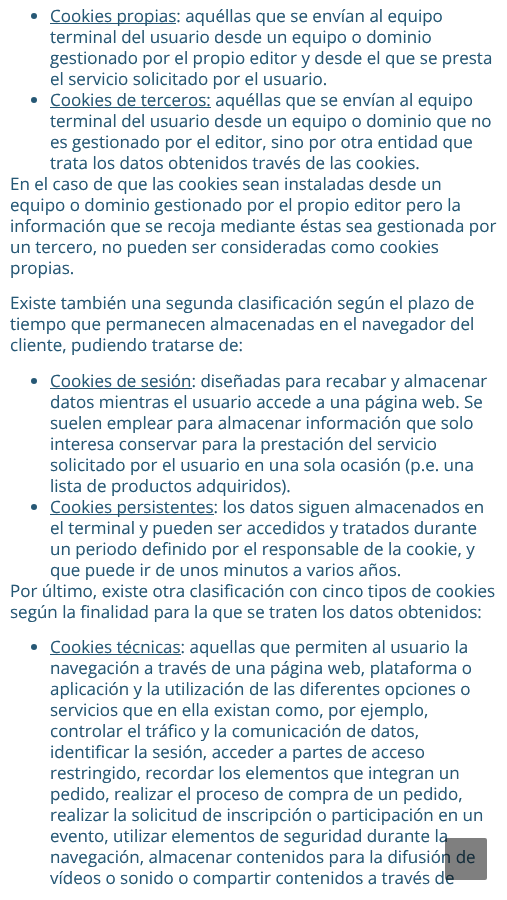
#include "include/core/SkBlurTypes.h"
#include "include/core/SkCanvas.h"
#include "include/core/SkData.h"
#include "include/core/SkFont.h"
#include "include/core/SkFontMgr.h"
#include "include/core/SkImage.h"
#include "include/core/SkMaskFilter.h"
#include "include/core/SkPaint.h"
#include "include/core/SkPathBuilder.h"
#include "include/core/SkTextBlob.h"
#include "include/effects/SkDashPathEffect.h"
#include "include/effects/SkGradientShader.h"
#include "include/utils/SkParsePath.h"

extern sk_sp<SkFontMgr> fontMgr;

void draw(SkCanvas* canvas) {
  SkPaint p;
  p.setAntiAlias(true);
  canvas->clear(SK_ColorWHITE);
  p.setColor(SkColorSetRGB(38, 88, 117));
  canvas->drawCircle(34, 16, 3, p);
  canvas->drawRect(SkRect::MakeLTRB(50, 23, 176, 24), p);
  canvas->drawCircle(34, 100, 3, p);
  canvas->drawRect(SkRect::MakeLTRB(50, 107, 211, 108), p);
  canvas->drawCircle(34, 381, 3, p);
  canvas->drawRect(SkRect::MakeLTRB(50, 388, 192, 389), p);
  canvas->drawCircle(34, 507, 3, p);
  canvas->drawRect(SkRect::MakeLTRB(50, 514, 214, 515), p);
  canvas->drawCircle(34, 647, 3, p);
  canvas->drawRect(SkRect::MakeLTRB(50, 654, 181, 655), p);
  SkFont font1(fontMgr->matchFamilyStyle("Open Sans", SkFontStyle::Normal()), 17);
  font1.setSubpixel(true);
  canvas->drawString("Cookies propias: aquéllas que se envían al equipo", 50, 22, font1, p);
  canvas->drawString("terminal del usuario desde un equipo o dominio", 50, 43, font1, p);
  canvas->drawString("gestionado por el propio editor y desde el que se presta", 50, 64, font1, p);
  canvas->drawString("el servicio solicitado por el usuario.", 50, 85, font1, p);
  canvas->drawString("Cookies de terceros: aquéllas que se envían al equipo", 50, 106, font1, p);
  canvas->drawString("terminal del usuario desde un equipo o dominio que no", 50, 127, font1, p);
  canvas->drawString("es gestionado por el editor, sino por otra entidad que", 50, 148, font1, p);
  canvas->drawString("trata los datos obtenidos través de las cookies.", 50, 169, font1, p);
  canvas->drawString("En el caso de que las cookies sean instaladas desde un", 10, 190, font1, p);
  canvas->drawString("equipo o dominio gestionado por el propio editor pero la", 10, 211, font1, p);
  canvas->drawString("información que se recoja mediante éstas sea gestionada por", 10, 232, font1, p);
  canvas->drawString("un tercero, no pueden ser consideradas como cookies", 10, 253, font1, p);
  canvas->drawString("propias.", 10, 274, font1, p);
  canvas->drawString("Existe también una segunda clasificación según el plazo de", 10, 309, font1, p);
  canvas->drawString("tiempo que permanecen almacenadas en el navegador del", 10, 330, font1, p);
  canvas->drawString("cliente, pudiendo tratarse de:", 10, 351, font1, p);
  canvas->drawString("Cookies de sesión: diseñadas para recabar y almacenar", 50, 387, font1, p);
  canvas->drawString("datos mientras el usuario accede a una página web. Se", 50, 408, font1, p);
  canvas->drawString("suelen emplear para almacenar información que solo", 50, 429, font1, p);
  canvas->drawString("interesa conservar para la prestación del servicio", 50, 450, font1, p);
  canvas->drawString("solicitado por el usuario en una sola ocasión (p.e. una", 50, 471, font1, p);
  canvas->drawString("lista de productos adquiridos).", 50, 492, font1, p);
  canvas->drawString("Cookies persistentes: los datos siguen almacenados en", 50, 513, font1, p);
  canvas->drawString("el terminal y pueden ser accedidos y tratados durante", 50, 534, font1, p);
  canvas->drawString("un periodo definido por el responsable de la cookie, y", 50, 555, font1, p);
  canvas->drawString("que puede ir de unos minutos a varios años.", 50, 576, font1, p);
  canvas->drawString("Por último, existe otra clasificación con cinco tipos de cookies", 10, 597, font1, p);
  canvas->drawString("según la finalidad para la que se traten los datos obtenidos:", 10, 618, font1, p);
  canvas->drawString("Cookies técnicas: aquellas que permiten al usuario la", 50, 653, font1, p);
  canvas->drawString("navegación a través de una página web, plataforma o", 50, 674, font1, p);
  canvas->drawString("aplicación y la utilización de las diferentes opciones o", 50, 695, font1, p);
  canvas->drawString("servicios que en ella existan como, por ejemplo,", 50, 716, font1, p);
  canvas->drawString("controlar el tráfico y la comunicación de datos,", 50, 737, font1, p);
  canvas->drawString("identificar la sesión, acceder a partes de acceso", 50, 758, font1, p);
  canvas->drawString("restringido, recordar los elementos que integran un", 50, 779, font1, p);
  canvas->drawString("pedido, realizar el proceso de compra de un pedido,", 50, 800, font1, p);
  canvas->drawString("realizar la solicitud de inscripción o participación en un", 50, 821, font1, p);
  canvas->drawString("evento, utilizar elementos de seguridad durante la", 50, 842, font1, p);
  canvas->drawString("navegación, almacenar contenidos para la difusión de", 50, 863, font1, p);
  canvas->drawString("vídeos o sonido o compartir contenidos a través de", 50, 884, font1, p);
  p.setColor(SkColorSetARGB(128, 0, 0, 0));
  canvas->drawRoundRect(SkRect::MakeLTRB(445, 838, 487, 880), 2, 2, p);
}
